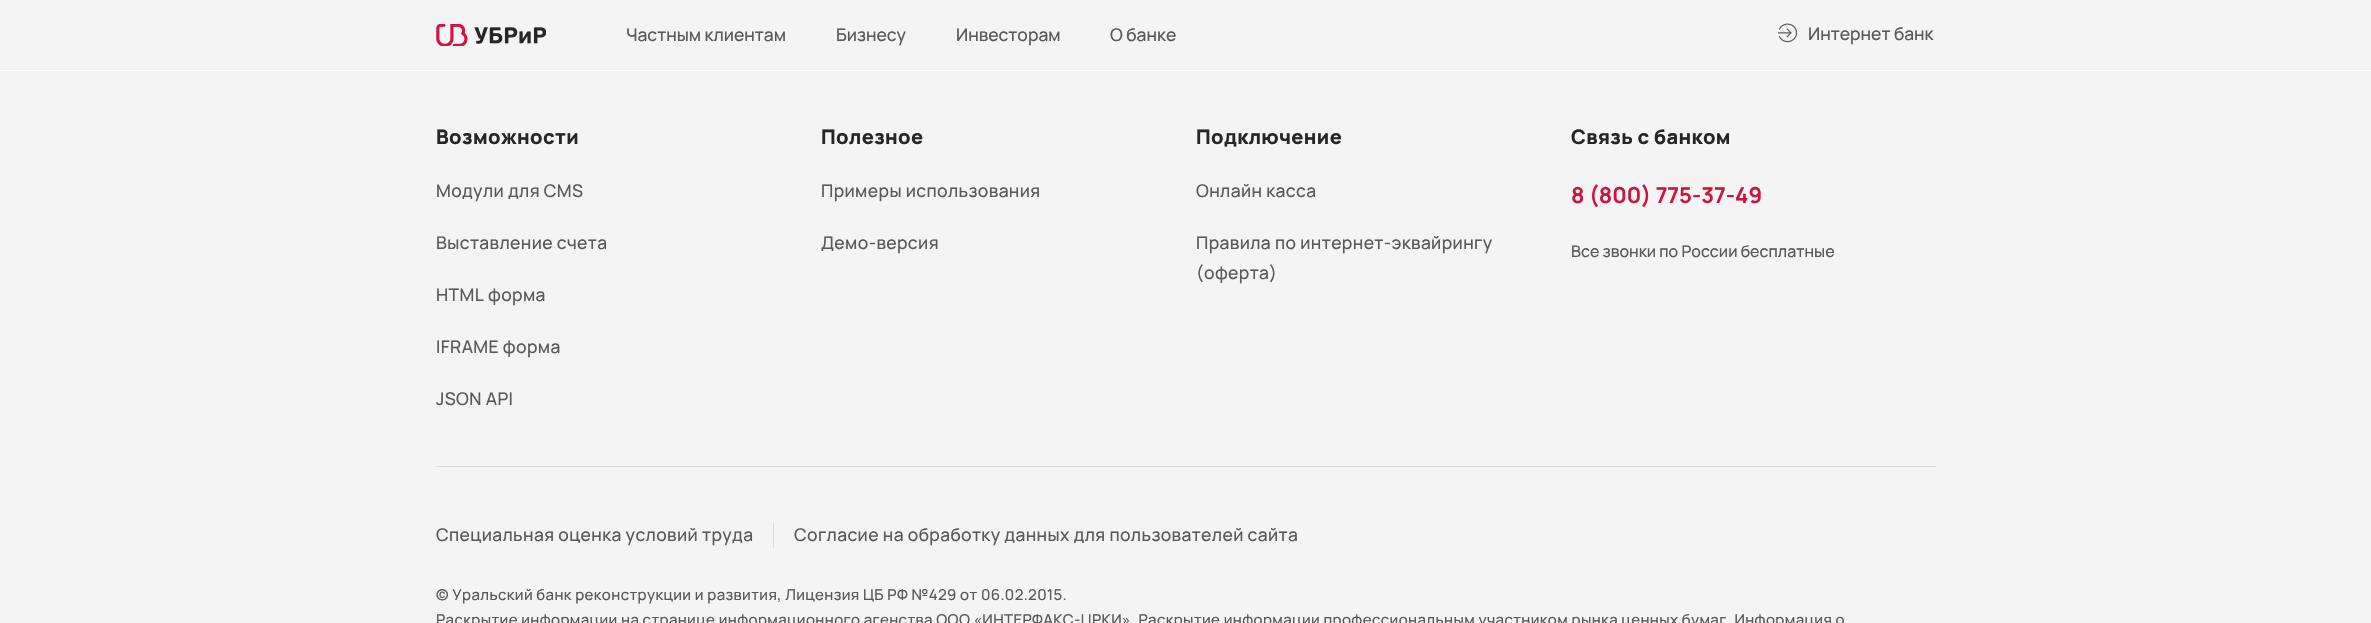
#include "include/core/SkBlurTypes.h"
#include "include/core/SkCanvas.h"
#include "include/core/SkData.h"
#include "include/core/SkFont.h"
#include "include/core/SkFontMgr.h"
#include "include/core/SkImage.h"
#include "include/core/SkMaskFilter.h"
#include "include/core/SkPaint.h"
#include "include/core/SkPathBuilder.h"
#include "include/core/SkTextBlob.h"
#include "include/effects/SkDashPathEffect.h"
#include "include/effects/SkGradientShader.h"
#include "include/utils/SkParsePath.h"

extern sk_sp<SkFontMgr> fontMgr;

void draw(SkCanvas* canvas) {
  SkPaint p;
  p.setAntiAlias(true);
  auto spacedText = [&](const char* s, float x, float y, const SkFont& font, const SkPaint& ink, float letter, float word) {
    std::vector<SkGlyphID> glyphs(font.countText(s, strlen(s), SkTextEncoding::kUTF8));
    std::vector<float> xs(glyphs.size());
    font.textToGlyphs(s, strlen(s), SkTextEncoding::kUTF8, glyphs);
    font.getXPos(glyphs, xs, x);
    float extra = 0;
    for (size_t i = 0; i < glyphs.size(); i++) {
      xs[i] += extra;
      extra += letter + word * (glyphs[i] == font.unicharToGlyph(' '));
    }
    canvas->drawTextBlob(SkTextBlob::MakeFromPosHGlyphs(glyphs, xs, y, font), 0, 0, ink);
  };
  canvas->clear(SkColorSetRGB(245, 244, 244));
  p.setColor(SK_ColorWHITE);
  canvas->drawRect(SkRect::MakeLTRB(0, 70, 2371, 71), p);
  canvas->drawImageRect(SkImages::DeferredFromEncodedData(SkData::MakeFromFileName("images/1.png")), SkRect::MakeLTRB(436, 24, 546, 46), SkSamplingOptions());
  canvas->drawImageRect(SkImages::DeferredFromEncodedData(SkData::MakeFromFileName("images/2.png")), SkRect::MakeLTRB(1778, 23, 1798, 43), SkSamplingOptions());
  p.setColor(SkColorSetRGB(218, 218, 218));
  canvas->drawRect(SkRect::MakeLTRB(436, 466, 1936, 467), p);
  canvas->drawRect(SkRect::MakeLTRB(773, 523, 774, 548), p);
  SkFont font1(fontMgr->matchFamilyStyle("Manrope", SkFontStyle(500, SkFontStyle::kNormal_Width, SkFontStyle::kUpright_Slant)), 17.5f);
  font1.setSubpixel(true);
  p.setColor(SkColorSetRGB(89, 89, 89));
  canvas->drawString("Частным клиентам", 626, 41, font1, p);
  canvas->drawString("Бизнесу", 836, 41, font1, p);
  canvas->drawString("Инвесторам", 956, 41, font1, p);
  canvas->drawString("О банке", 1110, 41, font1, p);
  canvas->drawString("Интернет банк", 1808, 40, font1, p);
  SkFont font2(fontMgr->matchFamilyStyle("Manrope", SkFontStyle(800, SkFontStyle::kNormal_Width, SkFontStyle::kUpright_Slant)), 20);
  font2.setSubpixel(true);
  p.setColor(SkColorSetRGB(38, 38, 38));
  spacedText("Возможности", 436, 144, font2, p, 0.38f, 0);
  p.setColor(SkColorSetRGB(89, 89, 89));
  spacedText("Модули для CMS", 436, 197, font1, p, 0.38f, 0);
  spacedText("Выставление счета", 436, 249, font1, p, 0.38f, 0);
  spacedText("HTML форма", 436, 301, font1, p, 0.38f, 0);
  spacedText("IFRAME форма", 436, 353, font1, p, 0.38f, 0);
  spacedText("JSON API", 436, 405, font1, p, 0.38f, 0);
  p.setColor(SkColorSetRGB(38, 38, 38));
  spacedText("Полезное", 821, 144, font2, p, 0.38f, 0);
  p.setColor(SkColorSetRGB(89, 89, 89));
  spacedText("Примеры использования", 821, 197, font1, p, 0.38f, 0);
  spacedText("Демо-версия", 821, 249, font1, p, 0.38f, 0);
  p.setColor(SkColorSetRGB(38, 38, 38));
  spacedText("Подключение", 1196, 144, font2, p, 0.38f, 0);
  p.setColor(SkColorSetRGB(89, 89, 89));
  spacedText("Онлайн касса", 1196, 197, font1, p, 0.38f, 0);
  spacedText("Правила по интернет-эквайрингу", 1196, 249, font1, p, 0.38f, 0);
  spacedText("(оферта)", 1196, 279, font1, p, 0.38f, 0);
  p.setColor(SkColorSetRGB(38, 38, 38));
  spacedText("Связь с банком", 1571, 144, font2, p, 0.38f, 0);
  SkFont font3(fontMgr->matchFamilyStyle("Manrope", SkFontStyle::Bold()), 22);
  font3.setSubpixel(true);
  p.setColor(SkColorSetRGB(204, 22, 63));
  canvas->drawString("8 (800) 775-37-49", 1571, 203, font3, p);
  SkFont font4(fontMgr->matchFamilyStyle("Manrope", SkFontStyle(500, SkFontStyle::kNormal_Width, SkFontStyle::kUpright_Slant)), 16);
  font4.setSubpixel(true);
  p.setColor(SkColorSetRGB(89, 89, 89));
  canvas->drawString("Все звонки по России бесплатные", 1571, 257, font4, p);
  spacedText("Специальная оценка условий труда", 436, 541, font1, p, 0.38f, 0);
  spacedText("Согласие на обработку данных для пользователей сайта", 794, 541, font1, p, 0.38f, 0);
  SkFont font5(fontMgr->matchFamilyStyle("Manrope", SkFontStyle(500, SkFontStyle::kNormal_Width, SkFontStyle::kUpright_Slant)), 15);
  font5.setSubpixel(true);
  spacedText("© Уральский банк реконструкции и развития, Лицензия ЦБ РФ №429 от 06.02.2015.", 436, 600, font5, p, 0.38f, 0);
  spacedText("Раскрытие информации на странице информационного агенства ООО «ИНТЕРФАКС-ЦРКИ». Раскрытие информации профессиональным участником рынка ценных бумаг. Информация о", 436, 625, font5, p, 0.38f, 0);
}
